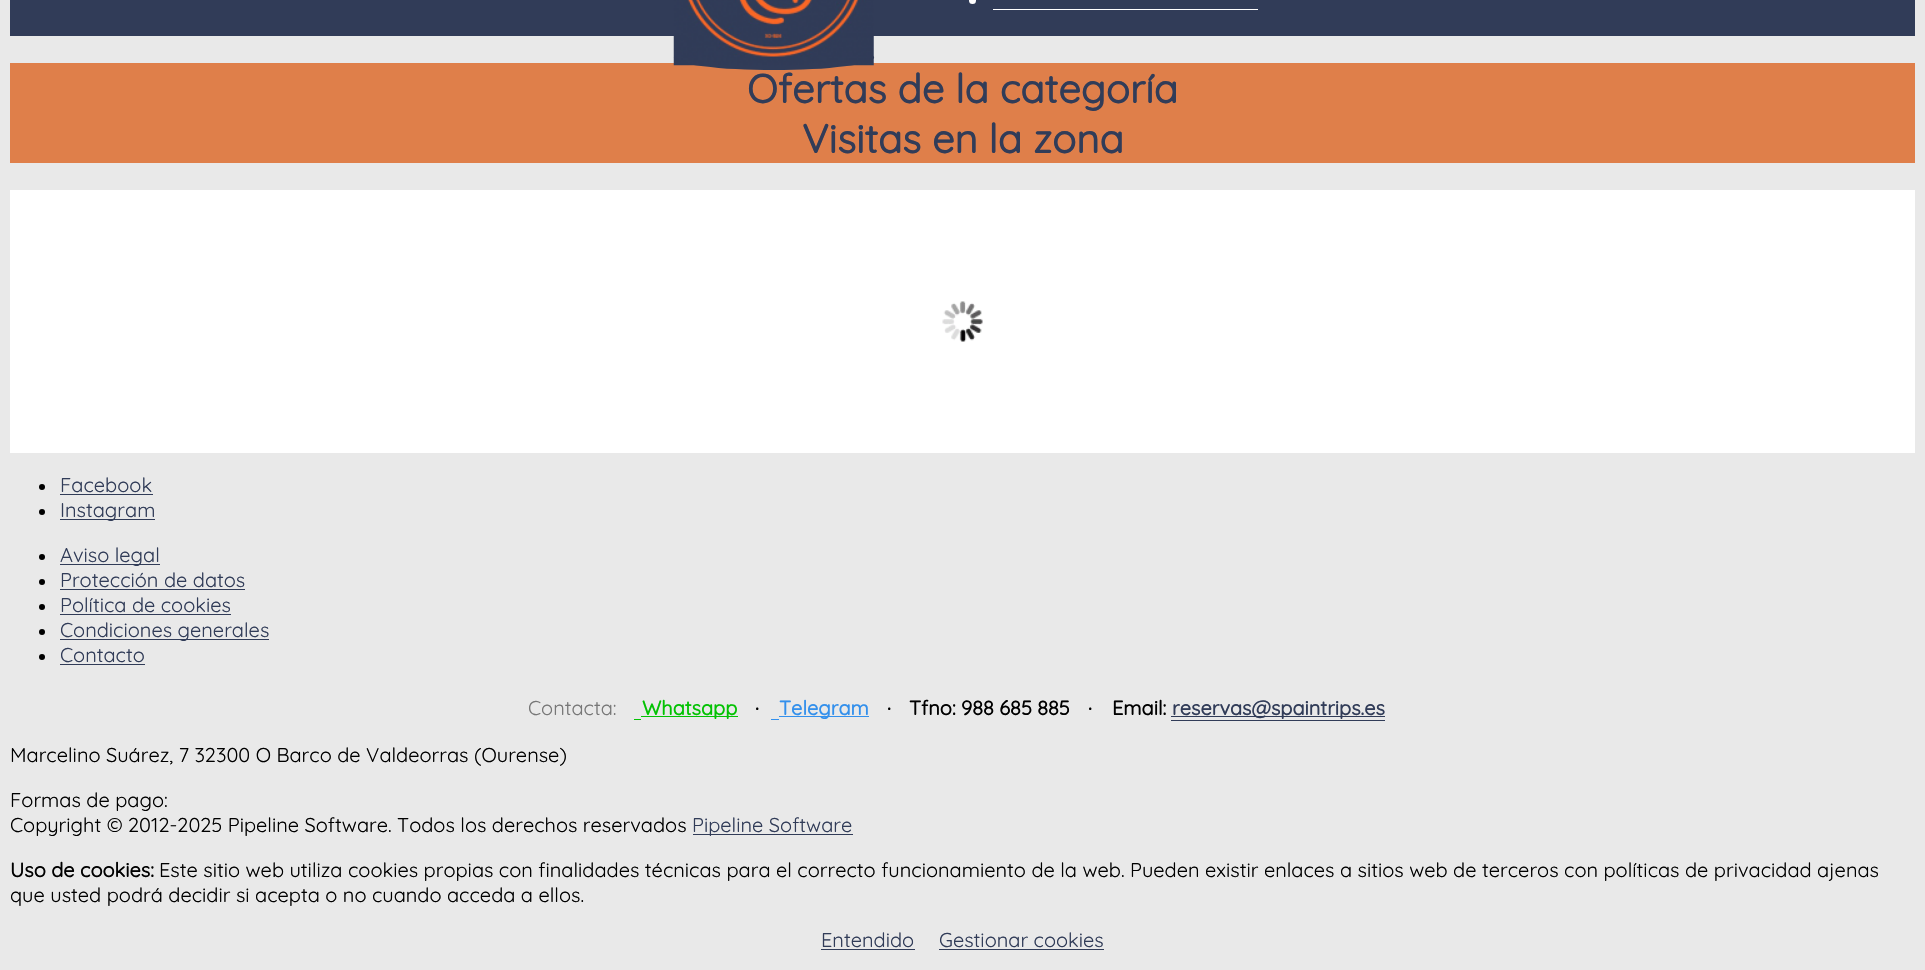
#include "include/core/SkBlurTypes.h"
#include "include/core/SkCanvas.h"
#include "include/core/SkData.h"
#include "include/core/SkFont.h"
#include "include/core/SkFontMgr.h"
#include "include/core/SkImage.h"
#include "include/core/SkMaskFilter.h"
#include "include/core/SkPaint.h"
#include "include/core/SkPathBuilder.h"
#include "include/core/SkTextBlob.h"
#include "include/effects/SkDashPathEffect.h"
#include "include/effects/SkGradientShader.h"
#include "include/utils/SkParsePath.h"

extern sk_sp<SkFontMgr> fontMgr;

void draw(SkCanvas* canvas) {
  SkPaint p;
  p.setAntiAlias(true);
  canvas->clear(SkColorSetRGB(233, 233, 233));
  p.setColor(SkColorSetRGB(49, 60, 88));
  canvas->drawRect(SkRect::MakeLTRB(10, 0, 1915, 36), p);
  p.setColor(SkColorSetRGB(223, 127, 74));
  canvas->drawRect(SkRect::MakeLTRB(10, 63, 1915, 163), p);
  p.setColor(SkColorSetRGB(49, 60, 88));
  canvas->drawOval(SkRect::MakeLTRB(674, 45, 874, 70), p);
  canvas->drawImageRect(SkImages::DeferredFromEncodedData(SkData::MakeFromFileName("images/1.png")), SkRect::MakeLTRB(673, 0, 874, 66), SkSamplingOptions());
  p.setColor(SK_ColorWHITE);
  canvas->drawRoundRect(SkRect::MakeLTRB(969, -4, 976, 4), 3.5f, 3.5f, p);
  canvas->drawRect(SkRect::MakeLTRB(993, 9, 1258, 10), p);
  canvas->drawRect(SkRect::MakeLTRB(10, 190, 1915, 453), p);
  canvas->drawImageRect(SkImages::DeferredFromEncodedData(SkData::MakeFromFileName("images/2.png")), SkRect::MakeLTRB(942, 301, 983, 342), SkSamplingOptions());
  p.setColor(SK_ColorBLACK);
  canvas->drawCircle(42, 487, 3, p);
  p.setColor(SkColorSetRGB(49, 60, 88));
  canvas->drawRect(SkRect::MakeLTRB(60, 494, 153, 495), p);
  p.setColor(SK_ColorBLACK);
  canvas->drawCircle(42, 512, 3, p);
  p.setColor(SkColorSetRGB(49, 60, 88));
  canvas->drawRect(SkRect::MakeLTRB(60, 519, 155, 520), p);
  p.setColor(SK_ColorBLACK);
  canvas->drawCircle(42, 557, 3, p);
  p.setColor(SkColorSetRGB(49, 60, 88));
  canvas->drawRect(SkRect::MakeLTRB(60, 564, 160, 565), p);
  p.setColor(SK_ColorBLACK);
  canvas->drawCircle(42, 582, 3, p);
  p.setColor(SkColorSetRGB(49, 60, 88));
  canvas->drawRect(SkRect::MakeLTRB(60, 589, 245, 590), p);
  p.setColor(SK_ColorBLACK);
  canvas->drawCircle(42, 607, 3, p);
  p.setColor(SkColorSetRGB(49, 60, 88));
  canvas->drawRect(SkRect::MakeLTRB(60, 614, 231, 615), p);
  p.setColor(SK_ColorBLACK);
  canvas->drawCircle(42, 632, 3, p);
  p.setColor(SkColorSetRGB(49, 60, 88));
  canvas->drawRect(SkRect::MakeLTRB(60, 639, 269, 640), p);
  p.setColor(SK_ColorBLACK);
  canvas->drawCircle(42, 657, 3, p);
  p.setColor(SkColorSetRGB(49, 60, 88));
  canvas->drawRect(SkRect::MakeLTRB(60, 664, 145, 665), p);
  p.setColor(SkColorSetRGB(3, 194, 3));
  canvas->drawRect(SkRect::MakeLTRB(641, 716, 738, 717), p);
  canvas->drawRect(SkRect::MakeLTRB(634, 719, 641, 720), p);
  p.setColor(SkColorSetRGB(51, 144, 236));
  canvas->drawRect(SkRect::MakeLTRB(779, 716, 869, 717), p);
  canvas->drawRect(SkRect::MakeLTRB(771, 719, 779, 720), p);
  p.setColor(SkColorSetRGB(49, 60, 88));
  canvas->drawRect(SkRect::MakeLTRB(1171, 720, 1385, 721), p);
  canvas->drawRect(SkRect::MakeLTRB(1171, 716, 1385, 717), p);
  canvas->drawRect(SkRect::MakeLTRB(693, 834, 853, 835), p);
  canvas->drawRect(SkRect::MakeLTRB(821, 949, 915, 950), p);
  canvas->drawRect(SkRect::MakeLTRB(939, 949, 1104, 950), p);
  SkFont font1(fontMgr->matchFamilyStyle("Quicksand", SkFontStyle::Bold()), 40);
  font1.setSubpixel(true);
  canvas->drawString("Ofertas de la categoría", 747, 103, font1, p);
  canvas->drawString("Visitas en la zona", 802, 153, font1, p);
  SkFont font2(fontMgr->matchFamilyStyle("Quicksand", SkFontStyle(300, SkFontStyle::kNormal_Width, SkFontStyle::kUpright_Slant)), 20);
  font2.setSubpixel(true);
  canvas->drawString("Facebook", 60, 492, font2, p);
  canvas->drawString("Instagram", 60, 517, font2, p);
  canvas->drawString("Aviso legal", 60, 562, font2, p);
  canvas->drawString("Protección de datos", 60, 587, font2, p);
  canvas->drawString("Política de cookies", 60, 612, font2, p);
  canvas->drawString("Condiciones generales", 60, 637, font2, p);
  canvas->drawString("Contacto", 60, 662, font2, p);
  p.setColor(SkColorSetRGB(119, 119, 119));
  canvas->drawString("Contacta:", 528, 715, font2, p);
  SkFont font3(fontMgr->matchFamilyStyle("Quicksand", SkFontStyle::Bold()), 20);
  font3.setSubpixel(true);
  p.setColor(SkColorSetRGB(3, 194, 3));
  canvas->drawString("Whatsapp", 642, 715, font3, p);
  p.setColor(SK_ColorBLACK);
  canvas->drawString("·", 755, 715, font3, p);
  p.setColor(SkColorSetRGB(51, 144, 236));
  canvas->drawString("Telegram", 779, 715, font3, p);
  p.setColor(SK_ColorBLACK);
  canvas->drawString("·", 887, 715, font3, p);
  canvas->drawString("Tfno: 988 685 885", 909, 715, font3, p);
  canvas->drawString("·", 1088, 715, font3, p);
  canvas->drawString("Email:", 1112, 715, font3, p);
  p.setColor(SkColorSetRGB(49, 60, 88));
  canvas->drawString("reservas@spaintrips.es", 1172, 715, font3, p);
  p.setColor(SK_ColorBLACK);
  canvas->drawString("Marcelino Suárez, 7 32300 O Barco de Valdeorras (Ourense)", 10, 762, font2, p);
  canvas->drawString("Formas de pago:", 10, 807, font2, p);
  canvas->drawString("Copyright © 2012-2025 Pipeline Software. Todos los derechos reservados", 10, 832, font2, p);
  p.setColor(SkColorSetRGB(49, 60, 88));
  canvas->drawString("Pipeline Software", 692, 832, font2, p);
  p.setColor(SK_ColorBLACK);
  canvas->drawString("Uso de cookies:", 10, 877, font3, p);
  canvas->drawString("Este sitio web utiliza cookies propias con finalidades técnicas para el correcto funcionamiento de la web. Pueden existir enlaces a sitios web de terceros con políticas de privacidad ajenas", 159, 877, font2, p);
  canvas->drawString("que usted podrá decidir si acepta o no cuando acceda a ellos.", 10, 902, font2, p);
  p.setColor(SkColorSetRGB(49, 60, 88));
  canvas->drawString("Entendido", 821, 947, font2, p);
  canvas->drawString("Gestionar cookies", 939, 947, font2, p);
}
